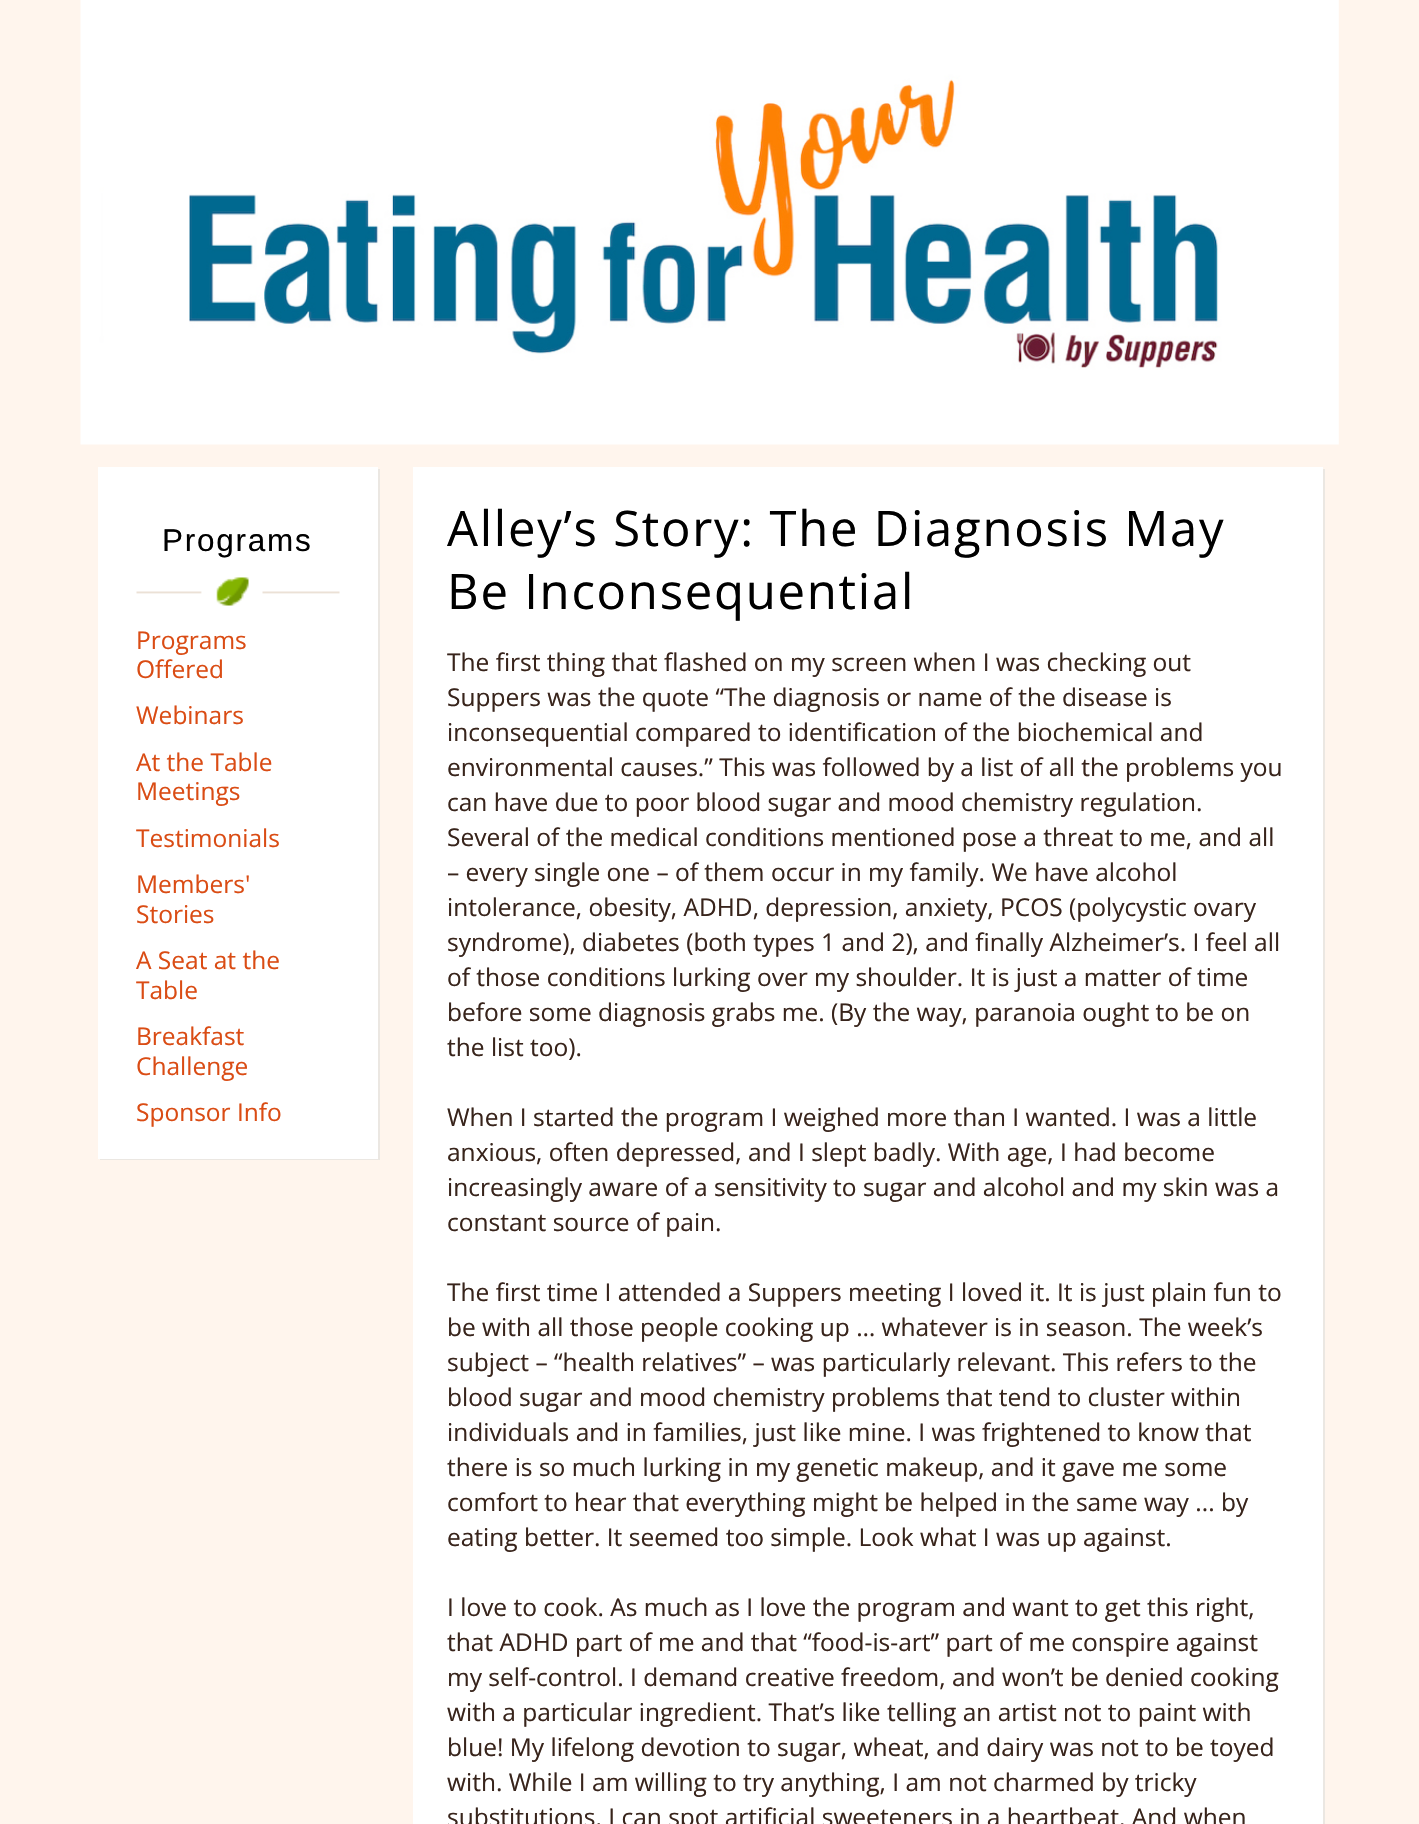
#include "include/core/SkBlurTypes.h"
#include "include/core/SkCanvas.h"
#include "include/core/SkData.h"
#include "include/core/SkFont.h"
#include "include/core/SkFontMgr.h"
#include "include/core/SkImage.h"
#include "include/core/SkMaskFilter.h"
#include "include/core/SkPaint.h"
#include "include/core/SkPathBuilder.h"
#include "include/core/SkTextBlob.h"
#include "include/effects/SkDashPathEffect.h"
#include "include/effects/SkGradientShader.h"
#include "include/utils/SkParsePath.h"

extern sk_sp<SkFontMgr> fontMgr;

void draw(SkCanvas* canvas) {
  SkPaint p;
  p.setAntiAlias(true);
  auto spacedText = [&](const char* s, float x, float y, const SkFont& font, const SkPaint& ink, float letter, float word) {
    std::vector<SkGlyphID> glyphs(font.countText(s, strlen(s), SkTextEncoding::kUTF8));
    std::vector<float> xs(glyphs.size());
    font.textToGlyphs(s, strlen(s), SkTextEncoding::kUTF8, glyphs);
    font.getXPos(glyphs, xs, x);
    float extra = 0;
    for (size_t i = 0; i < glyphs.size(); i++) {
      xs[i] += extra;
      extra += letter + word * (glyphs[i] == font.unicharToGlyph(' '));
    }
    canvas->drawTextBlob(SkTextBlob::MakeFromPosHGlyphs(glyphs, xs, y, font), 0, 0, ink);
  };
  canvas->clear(SkColorSetRGB(255, 245, 237));
  canvas->drawImageRect(SkImages::DeferredFromEncodedData(SkData::MakeFromFileName("images/1.png")), SkRect::MakeLTRB(80, 0, 1339, 445), SkSamplingOptions());
  p.setColor(SkColorSetRGB(235, 231, 226));
  canvas->drawPath(SkPathBuilder().moveTo(100, 1158).lineTo(100, 1160).lineTo(380, 1160).lineTo(380, 469).lineTo(378, 469).lineTo(378, 1158).close().detach(), p);
  p.setColor(SK_ColorWHITE);
  canvas->drawRect(SkRect::MakeLTRB(98, 467, 378, 1159), p);
  canvas->drawImageRect(SkImages::DeferredFromEncodedData(SkData::MakeFromFileName("images/2.png")), SkRect::MakeLTRB(136, 577, 340, 606), SkSamplingOptions());
  p.setColor(SkColorSetRGB(235, 231, 226));
  canvas->drawPath(SkPathBuilder().moveTo(415, 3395).lineTo(415, 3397).lineTo(1325, 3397).lineTo(1325, 469).lineTo(1323, 469).lineTo(1323, 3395).close().detach(), p);
  p.setColor(SK_ColorWHITE);
  canvas->drawRect(SkRect::MakeLTRB(413, 467, 1323, 1824), p);
  SkFont font1(fontMgr->matchFamilyStyle("Liberation Sans", SkFontStyle::Normal()), 31.5f);
  font1.setSubpixel(true);
  p.setColor(SK_ColorBLACK);
  spacedText("Programs", 162, 551, font1, p, 1.75f, 0);
  SkFont font2(fontMgr->matchFamilyStyle("Open Sans", SkFontStyle::Normal()), 24.5f);
  font2.setSubpixel(true);
  p.setColor(SkColorSetRGB(218, 76, 20));
  canvas->drawString("Programs", 136, 649, font2, p);
  canvas->drawString("Offered", 136, 678, font2, p);
  canvas->drawString("Webinars", 136, 724, font2, p);
  canvas->drawString("At the Table", 136, 771, font2, p);
  canvas->drawString("Meetings", 136, 800, font2, p);
  canvas->drawString("Testimonials", 136, 847, font2, p);
  canvas->drawString("Members'", 136, 893, font2, p);
  canvas->drawString("Stories", 136, 923, font2, p);
  canvas->drawString("A Seat at the", 136, 969, font2, p);
  canvas->drawString("Table", 136, 999, font2, p);
  canvas->drawString("Breakfast", 136, 1045, font2, p);
  canvas->drawString("Challenge", 136, 1075, font2, p);
  canvas->drawString("Sponsor Info", 136, 1121, font2, p);
  SkFont font3(fontMgr->matchFamilyStyle("Open Sans", SkFontStyle::Normal()), 49);
  font3.setSubpixel(true);
  p.setColor(SK_ColorBLACK);
  spacedText("Alley’s Story: The Diagnosis May", 447, 546, font3, p, 1.75f, 0);
  spacedText("Be Inconsequential", 447, 609, font3, p, 1.75f, 0);
  p.setColor(SkColorSetRGB(56, 36, 27));
  canvas->drawString("The first thing that flashed on my screen when I was checking out", 447, 671, font2, p);
  canvas->drawString("Suppers was the quote “The diagnosis or name of the disease is", 447, 706, font2, p);
  canvas->drawString("inconsequential compared to identification of the biochemical and", 447, 741, font2, p);
  canvas->drawString("environmental causes.” This was followed by a list of all the problems you", 447, 776, font2, p);
  canvas->drawString("can have due to poor blood sugar and mood chemistry regulation.", 447, 811, font2, p);
  canvas->drawString("Several of the medical conditions mentioned pose a threat to me, and all", 447, 846, font2, p);
  canvas->drawString("– every single one – of them occur in my family. We have alcohol", 447, 881, font2, p);
  canvas->drawString("intolerance, obesity, ADHD, depression, anxiety, PCOS (polycystic ovary", 447, 916, font2, p);
  canvas->drawString("syndrome), diabetes (both types 1 and 2), and finally Alzheimer’s. I feel all", 447, 951, font2, p);
  canvas->drawString("of those conditions lurking over my shoulder. It is just a matter of time", 447, 986, font2, p);
  canvas->drawString("before some diagnosis grabs me. (By the way, paranoia ought to be on", 447, 1021, font2, p);
  canvas->drawString("the list too).", 447, 1056, font2, p);
  canvas->drawString("When I started the program I weighed more than I wanted. I was a little", 447, 1126, font2, p);
  canvas->drawString("anxious, often depressed, and I slept badly. With age, I had become", 447, 1161, font2, p);
  canvas->drawString("increasingly aware of a sensitivity to sugar and alcohol and my skin was a", 447, 1196, font2, p);
  canvas->drawString("constant source of pain.", 447, 1231, font2, p);
  canvas->drawString("The first time I attended a Suppers meeting I loved it. It is just plain fun to", 447, 1301, font2, p);
  canvas->drawString("be with all those people cooking up … whatever is in season. The week’s", 447, 1336, font2, p);
  canvas->drawString("subject – “health relatives” – was particularly relevant. This refers to the", 447, 1371, font2, p);
  canvas->drawString("blood sugar and mood chemistry problems that tend to cluster within", 447, 1406, font2, p);
  canvas->drawString("individuals and in families, just like mine. I was frightened to know that", 447, 1441, font2, p);
  canvas->drawString("there is so much lurking in my genetic makeup, and it gave me some", 447, 1476, font2, p);
  canvas->drawString("comfort to hear that everything might be helped in the same way ... by", 447, 1511, font2, p);
  canvas->drawString("eating better. It seemed too simple. Look what I was up against.", 447, 1546, font2, p);
  canvas->drawString("I love to cook. As much as I love the program and want to get this right,", 447, 1616, font2, p);
  canvas->drawString("that ADHD part of me and that “food-is-art” part of me conspire against", 447, 1651, font2, p);
  canvas->drawString("my self-control. I demand creative freedom, and won’t be denied cooking", 447, 1686, font2, p);
  canvas->drawString("with a particular ingredient. That’s like telling an artist not to paint with", 447, 1721, font2, p);
  canvas->drawString("blue! My lifelong devotion to sugar, wheat, and dairy was not to be toyed", 447, 1756, font2, p);
  canvas->drawString("with. While I am willing to try anything, I am not charmed by tricky", 447, 1791, font2, p);
  canvas->drawString("substitutions. I can spot artificial sweeteners in a heartbeat. And when", 447, 1826, font2, p);
}
